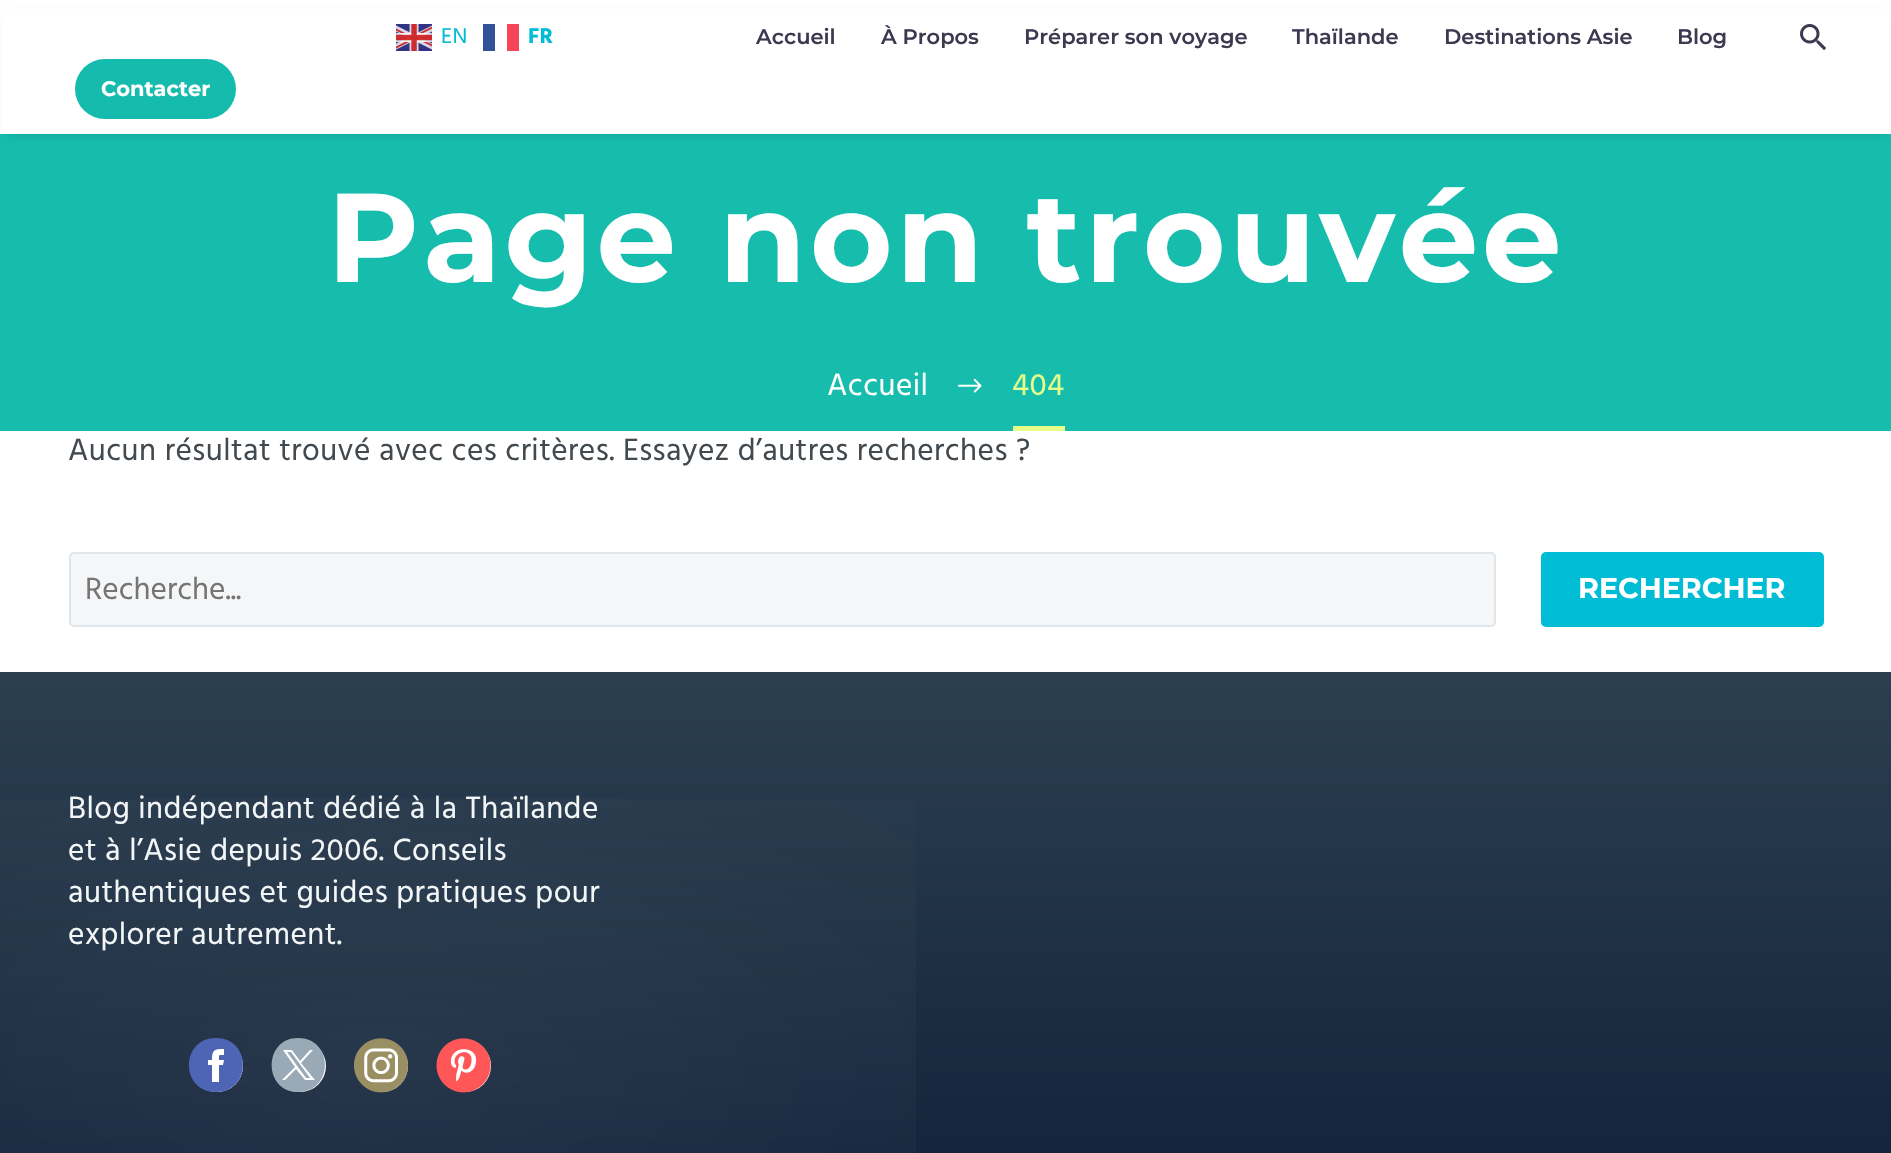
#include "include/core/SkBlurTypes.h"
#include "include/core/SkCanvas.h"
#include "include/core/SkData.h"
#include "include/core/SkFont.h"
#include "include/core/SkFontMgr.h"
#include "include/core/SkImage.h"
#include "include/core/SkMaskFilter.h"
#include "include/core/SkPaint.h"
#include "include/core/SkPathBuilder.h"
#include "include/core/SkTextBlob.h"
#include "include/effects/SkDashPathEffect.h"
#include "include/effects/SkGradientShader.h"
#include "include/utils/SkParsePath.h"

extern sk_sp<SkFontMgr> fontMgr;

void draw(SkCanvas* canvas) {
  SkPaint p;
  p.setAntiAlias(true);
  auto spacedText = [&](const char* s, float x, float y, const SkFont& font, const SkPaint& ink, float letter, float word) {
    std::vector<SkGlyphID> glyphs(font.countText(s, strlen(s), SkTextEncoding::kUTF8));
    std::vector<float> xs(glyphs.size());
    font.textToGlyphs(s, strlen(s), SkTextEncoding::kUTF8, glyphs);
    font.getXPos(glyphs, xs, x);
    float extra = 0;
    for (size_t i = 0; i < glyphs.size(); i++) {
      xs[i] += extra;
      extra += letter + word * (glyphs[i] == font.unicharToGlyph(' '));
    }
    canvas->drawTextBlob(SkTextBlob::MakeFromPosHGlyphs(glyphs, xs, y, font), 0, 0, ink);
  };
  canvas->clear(SK_ColorWHITE);
  p.setColor(SkColorSetRGB(22, 188, 172));
  canvas->drawRect(SkRect::MakeLTRB(0, 134, 1891, 431), p);
  p.setColor(SkColorSetARGB(38, 0, 0, 0));
  p.setMaskFilter(SkMaskFilter::MakeBlur(kNormal_SkBlurStyle, 4));
  canvas->drawRect(SkRect::MakeLTRB(8, 15, 1884, 134), p);
  p.setMaskFilter(nullptr);
  p.setColor(SK_ColorWHITE);
  canvas->drawRect(SkRect::MakeLTRB(2, 9, 1890, 134), p);
  canvas->drawImageRect(SkImages::DeferredFromEncodedData(SkData::MakeFromFileName("images/1.png")), SkRect::MakeLTRB(396, 24, 432, 51), SkSamplingOptions());
  p.setColor(SkColorSetRGB(51, 81, 153));
  canvas->drawRect(SkRect::MakeLTRB(483, 24, 495, 51), p);
  p.setColor(SkColorSetRGB(245, 70, 89));
  canvas->drawRect(SkRect::MakeLTRB(507, 24, 519, 51), p);
  canvas->drawImageRect(SkImages::DeferredFromEncodedData(SkData::MakeFromFileName("images/2.png")), SkRect::MakeLTRB(1800, 24, 1827, 51), SkSamplingOptions());
  p.setColor(SkColorSetRGB(21, 188, 173));
  canvas->drawRoundRect(SkRect::MakeLTRB(75, 59, 236, 119), 30, 30, p);
  canvas->drawImageRect(SkImages::DeferredFromEncodedData(SkData::MakeFromFileName("images/3.png")), SkRect::MakeLTRB(958, 378, 982, 393), SkSamplingOptions());
  p.setColor(SkColorSetRGB(231, 255, 137));
  canvas->drawRect(SkRect::MakeLTRB(1013, 426, 1065, 431), p);
  p.setColor(SkColorSetRGB(244, 246, 247));
  canvas->drawRoundRect(SkRect::MakeLTRB(70, 553, 1495, 626), 4, 4, p);
  p.setStyle(SkPaint::kStroke_Style);
  p.setStrokeWidth(2);
  p.setColor(SkColorSetRGB(223, 229, 232));
  canvas->drawRoundRect(SkRect::MakeLTRB(70, 553, 1495, 626), 4, 4, p);
  p.setStyle(SkPaint::kFill_Style);
  p.setColor(SkColorSetRGB(0, 188, 212));
  canvas->drawRoundRect(SkRect::MakeLTRB(1541, 552, 1824, 627), 5, 5, p);
  {
    const SkColor colors[] = {SkColorSetRGB(44, 63, 80), SkColorSetRGB(20, 36, 59)};
    const float stops[] = {0, 1};
    const SkPoint ends[] = {{946, 672}, {946, 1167}};
    p.setShader(SkGradientShader::MakeLinear(ends, colors, stops, 2, SkTileMode::kClamp));
    p.setAlpha(255);
  }
  canvas->drawRect(SkRect::MakeLTRB(0, 672, 1891, 1153), p);
  {
    const SkColor colors[] = {SkColorSetARGB(15, 255, 255, 255), SkColorSetARGB(0, 255, 255, 255)};
    const float stops[] = {0, 0.7f};
    SkMatrix m = SkMatrix::Translate(378, 1068).preScale(1200, 600);
    p.setShader(SkGradientShader::MakeRadial({0, 0}, 1, colors, stops, 2, SkTileMode::kClamp, 0, &m));
    p.setAlpha(255);
  }
  canvas->drawRect(SkRect::MakeLTRB(0, 799, 916, 1153), p);
  p.setShader(nullptr);
  p.setColor(SK_ColorWHITE);
  canvas->drawCircle(217, 1066, 26, p);
  p.setColor(SkColorSetRGB(78, 100, 181));
  canvas->drawPath(SkPathBuilder().moveTo(216, 1038).cubicTo(180, 1038, 180, 1092, 216, 1092).cubicTo(252, 1092, 252, 1038, 216, 1038).close().moveTo(223, 1065).lineTo(219, 1065).lineTo(219, 1082).lineTo(212, 1082).lineTo(212, 1065).lineTo(208, 1065).lineTo(208, 1060).lineTo(212, 1060).cubicTo(212, 1050, 214, 1049, 224, 1049).lineTo(224, 1055).cubicTo(218, 1055, 219, 1054, 219, 1060).lineTo(224, 1060).close().detach(), p);
  p.setColor(SK_ColorWHITE);
  canvas->drawRoundRect(SkRect::MakeLTRB(273, 1040, 326, 1092), 26, 26, p);
  p.setColor(SkColorSetRGB(153, 169, 181));
  canvas->drawPath(SkPathBuilder().moveTo(287, 1052).lineTo(306, 1078).lineTo(310, 1078).lineTo(291, 1052).close().moveTo(298, 1038).cubicTo(263, 1038, 263, 1092, 298, 1092).cubicTo(334, 1092, 334, 1038, 298, 1038).close().moveTo(305, 1080).lineTo(296, 1069).lineTo(285, 1080).lineTo(282, 1080).lineTo(295, 1067).lineTo(283, 1050).lineTo(292, 1050).lineTo(300, 1061).lineTo(310, 1050).lineTo(313, 1050).lineTo(301, 1063).lineTo(315, 1080).close().detach(), p);
  p.setColor(SK_ColorWHITE);
  canvas->drawCircle(382, 1066, 26, p);
  canvas->drawImageRect(SkImages::DeferredFromEncodedData(SkData::MakeFromFileName("images/4.png")), SkRect::MakeLTRB(354, 1038, 408, 1093), SkSamplingOptions());
  canvas->drawRoundRect(SkRect::MakeLTRB(438, 1040, 491, 1092), 26, 26, p);
  canvas->drawImageRect(SkImages::DeferredFromEncodedData(SkData::MakeFromFileName("images/5.png")), SkRect::MakeLTRB(436, 1038, 491, 1093), SkSamplingOptions());
  SkFont font1(fontMgr->matchFamilyStyle("Hind Madurai", SkFontStyle::Normal()), 22);
  font1.setSubpixel(true);
  p.setColor(SkColorSetRGB(0, 188, 212));
  spacedText("EN", 441, 43, font1, p, 0.45f, 0);
  SkFont font2(fontMgr->matchFamilyStyle("Hind Madurai", SkFontStyle::Bold()), 22);
  font2.setSubpixel(true);
  spacedText("FR", 528, 43, font2, p, 0.45f, 0);
  SkFont font3(fontMgr->matchFamilyStyle("Montserrat", SkFontStyle(600, SkFontStyle::kNormal_Width, SkFontStyle::kUpright_Slant)), 21);
  font3.setSubpixel(true);
  p.setColor(SkColorSetRGB(60, 57, 80));
  canvas->drawString("Accueil", 756, 44, font3, p);
  canvas->drawString("À Propos", 881, 44, font3, p);
  canvas->drawString("Préparer son voyage", 1024, 44, font3, p);
  canvas->drawString("Thaïlande", 1292, 44, font3, p);
  canvas->drawString("Destinations Asie", 1444, 44, font3, p);
  canvas->drawString("Blog", 1677, 44, font3, p);
  SkFont font4(fontMgr->matchFamilyStyle("Montserrat", SkFontStyle::Bold()), 21);
  font4.setSubpixel(true);
  p.setColor(SK_ColorWHITE);
  canvas->drawString("Contacter", 101, 96, font4, p);
  SkFont font5(fontMgr->matchFamilyStyle("Montserrat", SkFontStyle::Bold()), 126);
  font5.setSubpixel(true);
  spacedText("Page non trouvée", 327, 282, font5, p, 3.75f, 0);
  SkFont font6(fontMgr->matchFamilyStyle("Hind Madurai", SkFontStyle::Normal()), 31.5f);
  font6.setSubpixel(true);
  spacedText("Accueil", 827, 395, font6, p, 0.45f, 0);
  p.setColor(SkColorSetRGB(231, 255, 137));
  spacedText("404", 1012, 395, font6, p, 0.45f, 0);
  p.setColor(SkColorSetRGB(67, 74, 79));
  spacedText("Aucun résultat trouvé avec ces critères. Essayez d’autres recherches ?", 68, 460, font6, p, 0.45f, 0);
  p.setColor(SkColorSetRGB(117, 117, 117));
  canvas->drawString("Recherche...", 85, 599, font6, p);
  SkFont font7(fontMgr->matchFamilyStyle("Montserrat", SkFontStyle::Bold()), 28.5f);
  font7.setSubpixel(true);
  p.setColor(SK_ColorWHITE);
  canvas->drawString("RECHERCHER", 1578, 598, font7, p);
  p.setColor(SkColorSetRGB(242, 246, 247));
  spacedText("Blog indépendant dédié à la Thaïlande", 68, 818, font6, p, 0.45f, 0);
  spacedText("et à l’Asie depuis 2006. Conseils", 68, 860, font6, p, 0.45f, 0);
  spacedText("authentiques et guides pratiques pour", 68, 902, font6, p, 0.45f, 0);
  spacedText("explorer autrement.", 68, 944, font6, p, 0.45f, 0);
}
